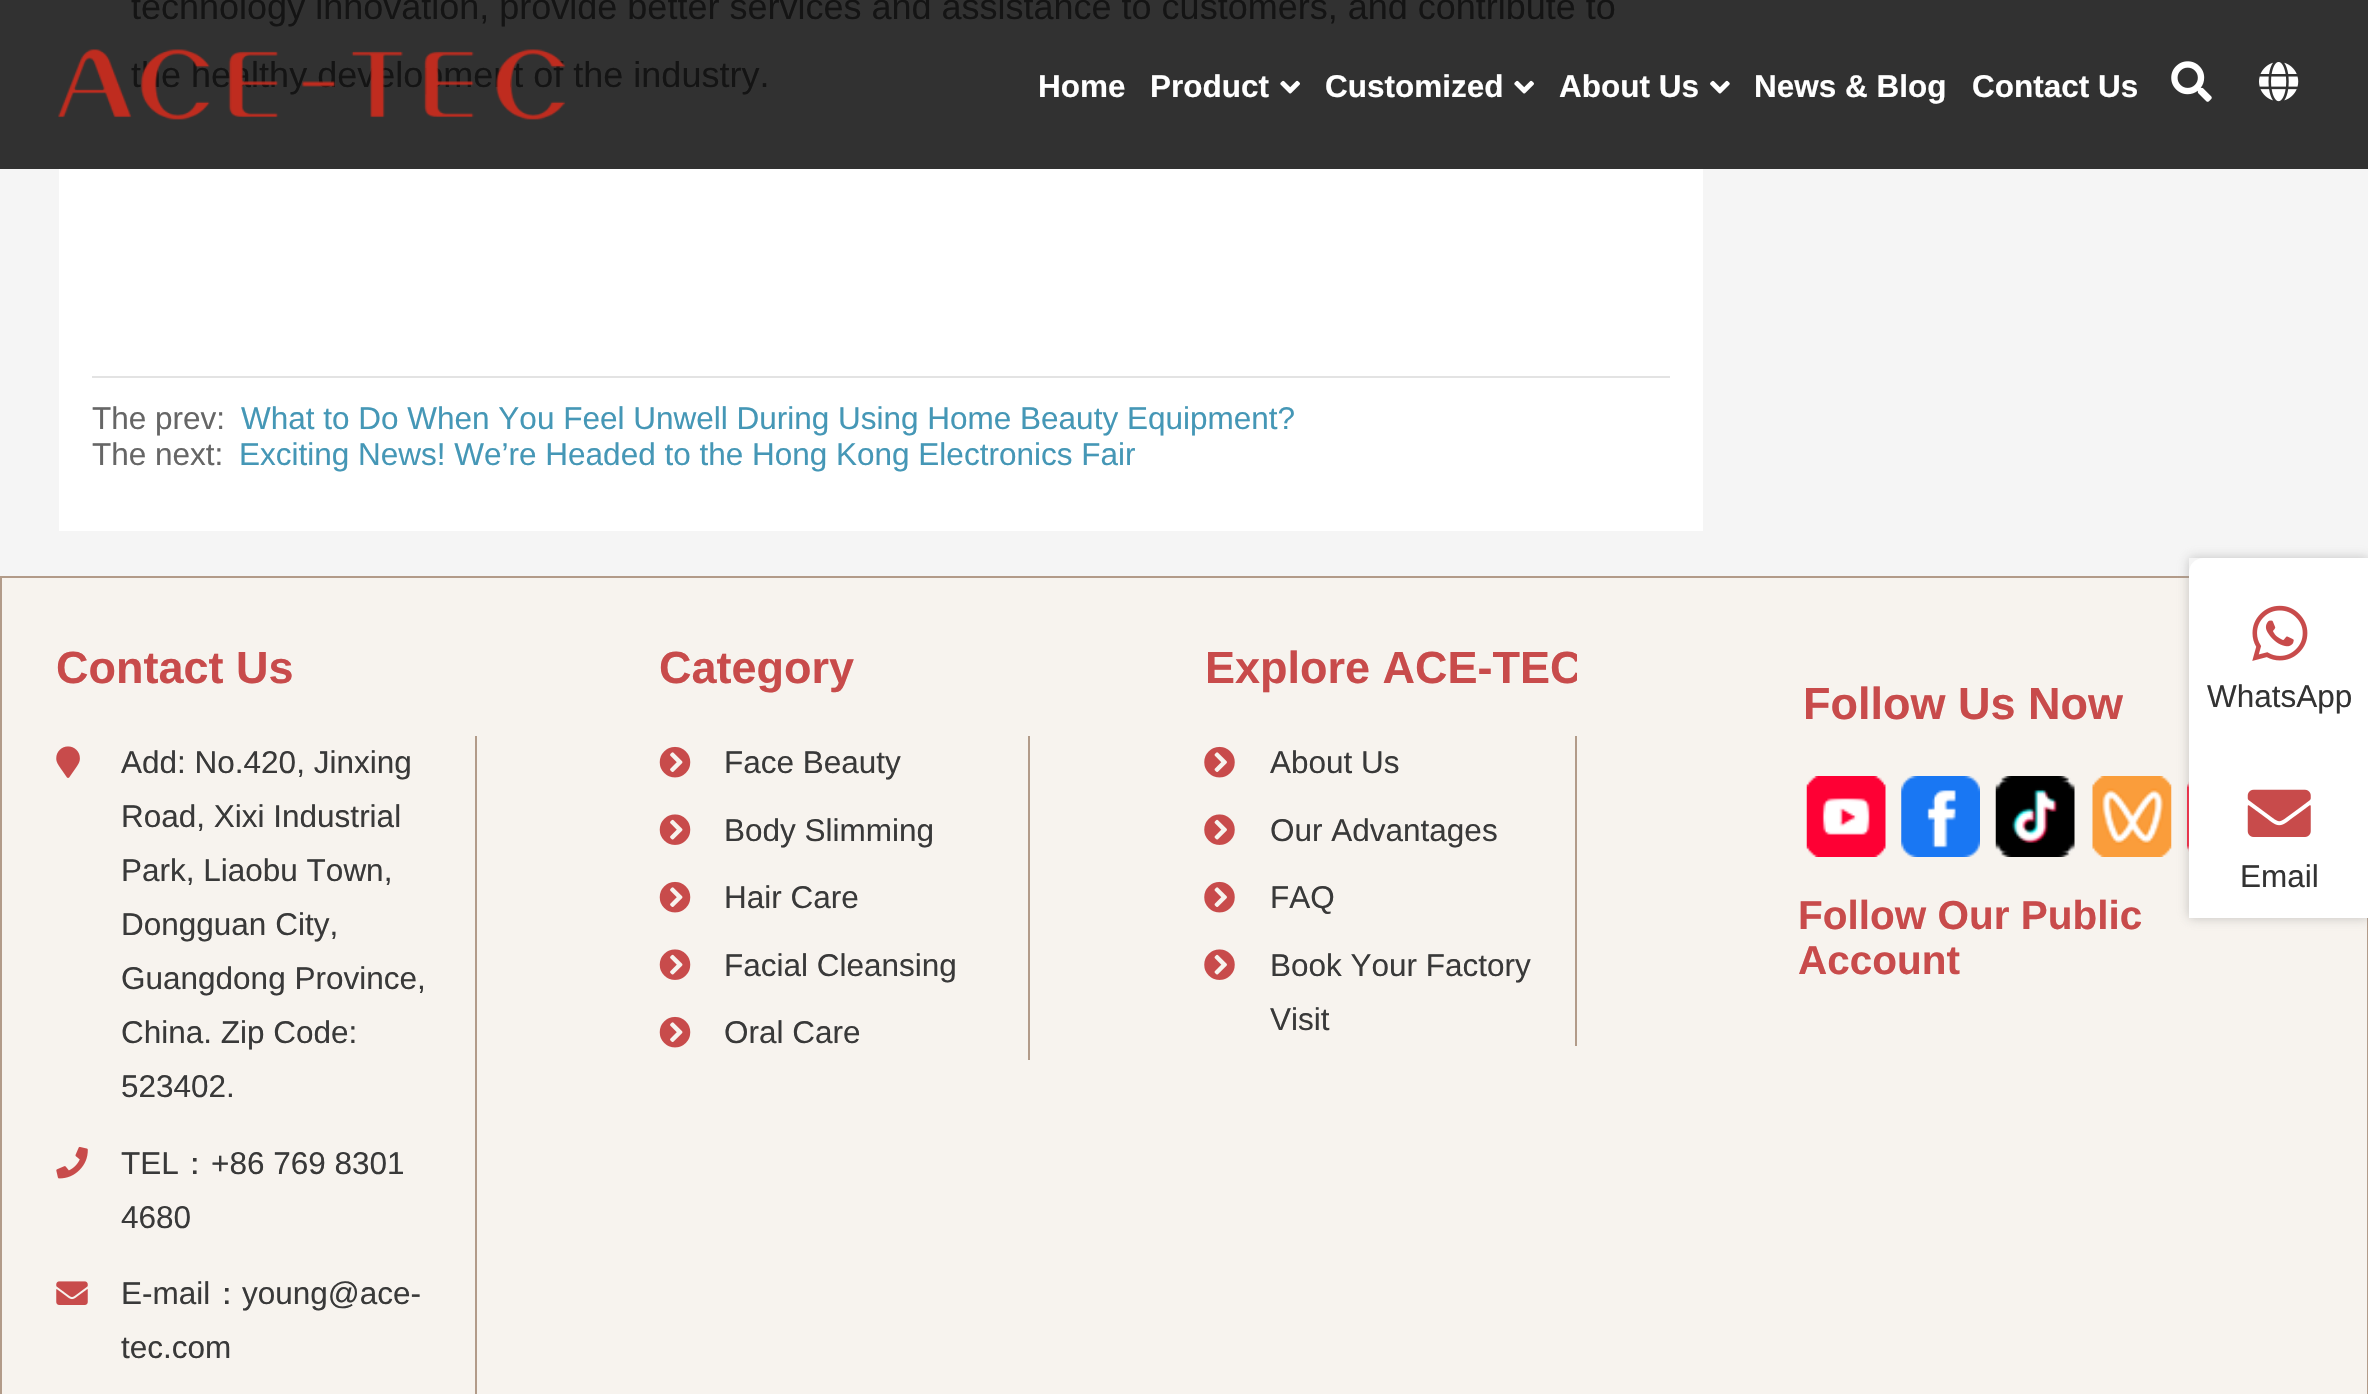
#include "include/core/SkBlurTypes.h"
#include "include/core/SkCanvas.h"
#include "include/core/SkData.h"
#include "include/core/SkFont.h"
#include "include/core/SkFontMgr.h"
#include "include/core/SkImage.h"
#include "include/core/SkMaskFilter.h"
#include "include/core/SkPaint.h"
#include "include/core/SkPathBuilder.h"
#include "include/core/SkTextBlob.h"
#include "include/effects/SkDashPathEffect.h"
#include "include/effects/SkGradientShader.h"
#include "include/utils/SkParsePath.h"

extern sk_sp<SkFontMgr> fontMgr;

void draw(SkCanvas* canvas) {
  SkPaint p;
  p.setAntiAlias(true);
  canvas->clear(SkColorSetRGB(245, 245, 245));
  p.setColor(SkColorSetRGB(49, 49, 49));
  canvas->drawRect(SkRect::MakeLTRB(0, 0, 2368, 169), p);
  p.setColor(SK_ColorWHITE);
  canvas->drawRect(SkRect::MakeLTRB(59, 169, 1703, 531), p);
  p.setColor(SkColorSetRGB(227, 227, 227));
  canvas->drawRect(SkRect::MakeLTRB(92, 376, 1670, 378), p);
  canvas->drawImageRect(SkImages::DeferredFromEncodedData(SkData::MakeFromFileName("images/2.png")), SkRect::MakeLTRB(1280, 80, 1300, 94), SkSamplingOptions());
  canvas->drawImageRect(SkImages::DeferredFromEncodedData(SkData::MakeFromFileName("images/2.png")), SkRect::MakeLTRB(1514, 80, 1534, 94), SkSamplingOptions());
  canvas->drawImageRect(SkImages::DeferredFromEncodedData(SkData::MakeFromFileName("images/3.png")), SkRect::MakeLTRB(1710, 80, 1730, 94), SkSamplingOptions());
  canvas->drawImageRect(SkImages::DeferredFromEncodedData(SkData::MakeFromFileName("images/4.png")), SkRect::MakeLTRB(2171, 61, 2212, 102), SkSamplingOptions());
  canvas->drawImageRect(SkImages::DeferredFromEncodedData(SkData::MakeFromFileName("images/5.png")), SkRect::MakeLTRB(2259, 62, 2299, 102), SkSamplingOptions());
  p.setColor(SkColorSetRGB(247, 243, 238));
  canvas->drawRect(SkRect::MakeLTRB(1, 577, 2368, 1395), p);
  p.setStyle(SkPaint::kStroke_Style);
  p.setStrokeWidth(2);
  p.setColor(SkColorSetRGB(178, 155, 137));
  canvas->drawRect(SkRect::MakeLTRB(1, 577, 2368, 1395), p);
  p.setStyle(SkPaint::kFill_Style);
  canvas->drawRect(SkRect::MakeLTRB(475, 736, 477, 1394), p);
  canvas->drawImageRect(SkImages::DeferredFromEncodedData(SkData::MakeFromFileName("images/6.png")), SkRect::MakeLTRB(56, 746, 80, 778), SkSamplingOptions());
  canvas->drawImageRect(SkImages::DeferredFromEncodedData(SkData::MakeFromFileName("images/7.png")), SkRect::MakeLTRB(56, 1146, 88, 1179), SkSamplingOptions());
  canvas->drawImageRect(SkImages::DeferredFromEncodedData(SkData::MakeFromFileName("images/8.png")), SkRect::MakeLTRB(56, 1281, 88, 1305), SkSamplingOptions());
  canvas->drawRect(SkRect::MakeLTRB(1028, 736, 1030, 1060), p);
  canvas->drawImageRect(SkImages::DeferredFromEncodedData(SkData::MakeFromFileName("images/9.png")), SkRect::MakeLTRB(659, 746, 691, 778), SkSamplingOptions());
  canvas->drawImageRect(SkImages::DeferredFromEncodedData(SkData::MakeFromFileName("images/10.png")), SkRect::MakeLTRB(659, 814, 691, 845), SkSamplingOptions());
  canvas->drawImageRect(SkImages::DeferredFromEncodedData(SkData::MakeFromFileName("images/9.png")), SkRect::MakeLTRB(659, 881, 691, 913), SkSamplingOptions());
  canvas->drawImageRect(SkImages::DeferredFromEncodedData(SkData::MakeFromFileName("images/10.png")), SkRect::MakeLTRB(659, 949, 691, 980), SkSamplingOptions());
  canvas->drawImageRect(SkImages::DeferredFromEncodedData(SkData::MakeFromFileName("images/9.png")), SkRect::MakeLTRB(659, 1016, 691, 1048), SkSamplingOptions());
  canvas->drawRect(SkRect::MakeLTRB(1575, 736, 1577, 1046), p);
  canvas->drawImageRect(SkImages::DeferredFromEncodedData(SkData::MakeFromFileName("images/11.png")), SkRect::MakeLTRB(1204, 746, 1235, 778), SkSamplingOptions());
  canvas->drawImageRect(SkImages::DeferredFromEncodedData(SkData::MakeFromFileName("images/12.png")), SkRect::MakeLTRB(1204, 814, 1235, 845), SkSamplingOptions());
  canvas->drawImageRect(SkImages::DeferredFromEncodedData(SkData::MakeFromFileName("images/11.png")), SkRect::MakeLTRB(1204, 881, 1235, 913), SkSamplingOptions());
  canvas->drawImageRect(SkImages::DeferredFromEncodedData(SkData::MakeFromFileName("images/12.png")), SkRect::MakeLTRB(1204, 949, 1235, 980), SkSamplingOptions());
  canvas->drawImageRect(SkImages::DeferredFromEncodedData(SkData::MakeFromFileName("images/13.png")), SkRect::MakeLTRB(1806, 776, 1886, 857), SkSamplingOptions());
  canvas->drawImageRect(SkImages::DeferredFromEncodedData(SkData::MakeFromFileName("images/14.png")), SkRect::MakeLTRB(1901, 776, 1980, 857), SkSamplingOptions());
  canvas->drawImageRect(SkImages::DeferredFromEncodedData(SkData::MakeFromFileName("images/15.png")), SkRect::MakeLTRB(1995, 776, 2075, 857), SkSamplingOptions());
  canvas->drawImageRect(SkImages::DeferredFromEncodedData(SkData::MakeFromFileName("images/16.png")), SkRect::MakeLTRB(2092, 776, 2172, 857), SkSamplingOptions());
  canvas->drawImageRect(SkImages::DeferredFromEncodedData(SkData::MakeFromFileName("images/17.png")), SkRect::MakeLTRB(2187, 781, 2189, 852), SkSamplingOptions());
  canvas->save();
  canvas->clipPath(SkPathBuilder(SkPathFillType::kEvenOdd).moveTo(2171, 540).lineTo(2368, 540).lineTo(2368, 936).lineTo(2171, 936).close().moveTo(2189, 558).lineTo(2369, 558).lineTo(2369, 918).lineTo(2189, 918).close().detach(), true);
  p.setColor(SkColorSetARGB(128, 141, 141, 141));
  p.setMaskFilter(SkMaskFilter::MakeBlur(kNormal_SkBlurStyle, 5.5f));
  canvas->drawRect(SkRect::MakeLTRB(2189, 558, 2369, 918), p);
  p.setMaskFilter(nullptr);
  canvas->restore();
  p.setColor(SK_ColorWHITE);
  canvas->drawPath(SkPathBuilder().moveTo(2203, 558).lineTo(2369, 558).lineTo(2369, 738).lineTo(2189, 738).lineTo(2189, 572).cubicTo(2189, 564.5f, 2195.5f, 558, 2203, 558).close().detach(), p);
  canvas->drawImageRect(SkImages::DeferredFromEncodedData(SkData::MakeFromFileName("images/18.png")), SkRect::MakeLTRB(2252, 605, 2308, 661), SkSamplingOptions());
  canvas->drawRect(SkRect::MakeLTRB(2189, 738, 2368, 918), p);
  canvas->drawImageRect(SkImages::DeferredFromEncodedData(SkData::MakeFromFileName("images/19.png")), SkRect::MakeLTRB(2247, 789, 2311, 837), SkSamplingOptions());
  SkFont font1(fontMgr->matchFamilyStyle("Liberation Sans", SkFontStyle::Normal()), 36);
  font1.setSubpixel(true);
  p.setColor(SkColorSetRGB(20, 20, 20));
  canvas->drawString("technology innovation, provide better services and assistance to customers, and contribute to", 131, 19, font1, p);
  canvas->drawString("the healthy development of the industry.", 131, 87, font1, p);
  SkFont font2(fontMgr->matchFamilyStyle("Liberation Sans", SkFontStyle::Normal()), 31.5f);
  font2.setSubpixel(true);
  p.setColor(SkColorSetRGB(102, 102, 102));
  canvas->drawString("The prev:", 92, 429, font2, p);
  p.setColor(SkColorSetRGB(69, 151, 182));
  canvas->drawString("What to Do When You Feel Unwell During Using Home Beauty Equipment?", 241, 429, font2, p);
  p.setColor(SkColorSetRGB(102, 102, 102));
  canvas->drawString("The next:", 92, 465, font2, p);
  p.setColor(SkColorSetRGB(69, 151, 182));
  canvas->drawString("Exciting News! We’re Headed to the Hong Kong Electronics Fair", 239, 465, font2, p);
  canvas->drawImageRect(SkImages::DeferredFromEncodedData(SkData::MakeFromFileName("images/1.png")), SkRect::MakeLTRB(58, 49, 566, 120), SkSamplingOptions());
  SkFont font3(fontMgr->matchFamilyStyle("Liberation Sans", SkFontStyle::Bold()), 31.5f);
  font3.setSubpixel(true);
  p.setColor(SK_ColorWHITE);
  canvas->drawString("Home", 1038, 97, font3, p);
  canvas->drawString("Product", 1150, 97, font3, p);
  canvas->drawString("Customized", 1325, 97, font3, p);
  canvas->drawString("About Us", 1559, 97, font3, p);
  canvas->drawString("News & Blog", 1754, 97, font3, p);
  canvas->drawString("Contact Us", 1972, 97, font3, p);
  SkFont font4(fontMgr->matchFamilyStyle("Liberation Sans", SkFontStyle::Bold()), 45);
  font4.setSubpixel(true);
  p.setColor(SkColorSetRGB(200, 75, 75));
  canvas->drawString("Contact Us", 56, 683, font4, p);
  p.setColor(SkColorSetRGB(57, 57, 57));
  canvas->drawString("Add: No.420, Jinxing", 121, 773, font2, p);
  canvas->drawString("Road, Xixi Industrial", 121, 827, font2, p);
  canvas->drawString("Park, Liaobu Town,", 121, 881, font2, p);
  canvas->drawString("Dongguan City,", 121, 935, font2, p);
  canvas->drawString("Guangdong Province,", 121, 989, font2, p);
  canvas->drawString("China. Zip Code:", 121, 1043, font2, p);
  canvas->drawString("523402.", 121, 1097, font2, p);
  canvas->drawString("TEL", 121, 1174, font2, p);
  SkFont font5(fontMgr->matchFamilyStyle("WenQuanYi Zen Hei", SkFontStyle(500, SkFontStyle::kNormal_Width, SkFontStyle::kUpright_Slant)), 31.5f);
  font5.setSubpixel(true);
  canvas->drawString("：", 179, 1174, font5, p);
  canvas->drawString("+86 769 8301", 211, 1174, font2, p);
  canvas->drawString("4680", 121, 1228, font2, p);
  canvas->drawString("E-mail", 121, 1304, font2, p);
  canvas->drawString("：", 211, 1304, font5, p);
  canvas->drawString("young@ace-", 242, 1304, font2, p);
  canvas->drawString("tec.com", 121, 1358, font2, p);
  p.setColor(SkColorSetRGB(200, 75, 75));
  canvas->drawString("Category", 659, 683, font4, p);
  p.setColor(SkColorSetRGB(57, 57, 57));
  canvas->drawString("Face Beauty", 724, 773, font2, p);
  canvas->drawString("Body Slimming", 724, 841, font2, p);
  canvas->drawString("Hair Care", 724, 908, font2, p);
  canvas->drawString("Facial Cleansing", 724, 976, font2, p);
  canvas->drawString("Oral Care", 724, 1043, font2, p);
  canvas->save();
  canvas->clipRect(SkRect::MakeLTRB(1139, 578, 1577, 1127));
  p.setColor(SkColorSetRGB(200, 75, 75));
  canvas->drawString("Explore ACE-TEC", 1205, 683, font4, p);
  canvas->restore();
  p.setColor(SkColorSetRGB(57, 57, 57));
  canvas->drawString("About Us", 1270, 773, font2, p);
  canvas->drawString("Our Advantages", 1270, 841, font2, p);
  canvas->drawString("FAQ", 1270, 908, font2, p);
  canvas->drawString("Book Your Factory", 1270, 976, font2, p);
  canvas->drawString("Visit", 1270, 1030, font2, p);
  p.setColor(SkColorSetRGB(200, 75, 75));
  canvas->drawString("Follow Us Now", 1803, 719, font4, p);
  SkFont font6(fontMgr->matchFamilyStyle("Liberation Sans", SkFontStyle::Bold()), 40.5f);
  font6.setSubpixel(true);
  canvas->drawString("Follow Our Public", 1798, 929, font6, p);
  canvas->drawString("Account", 1798, 974, font6, p);
  p.setColor(SkColorSetRGB(51, 51, 51));
  canvas->drawString("WhatsApp", 2207, 707, font2, p);
  canvas->drawString("Email", 2240, 887, font2, p);
}
